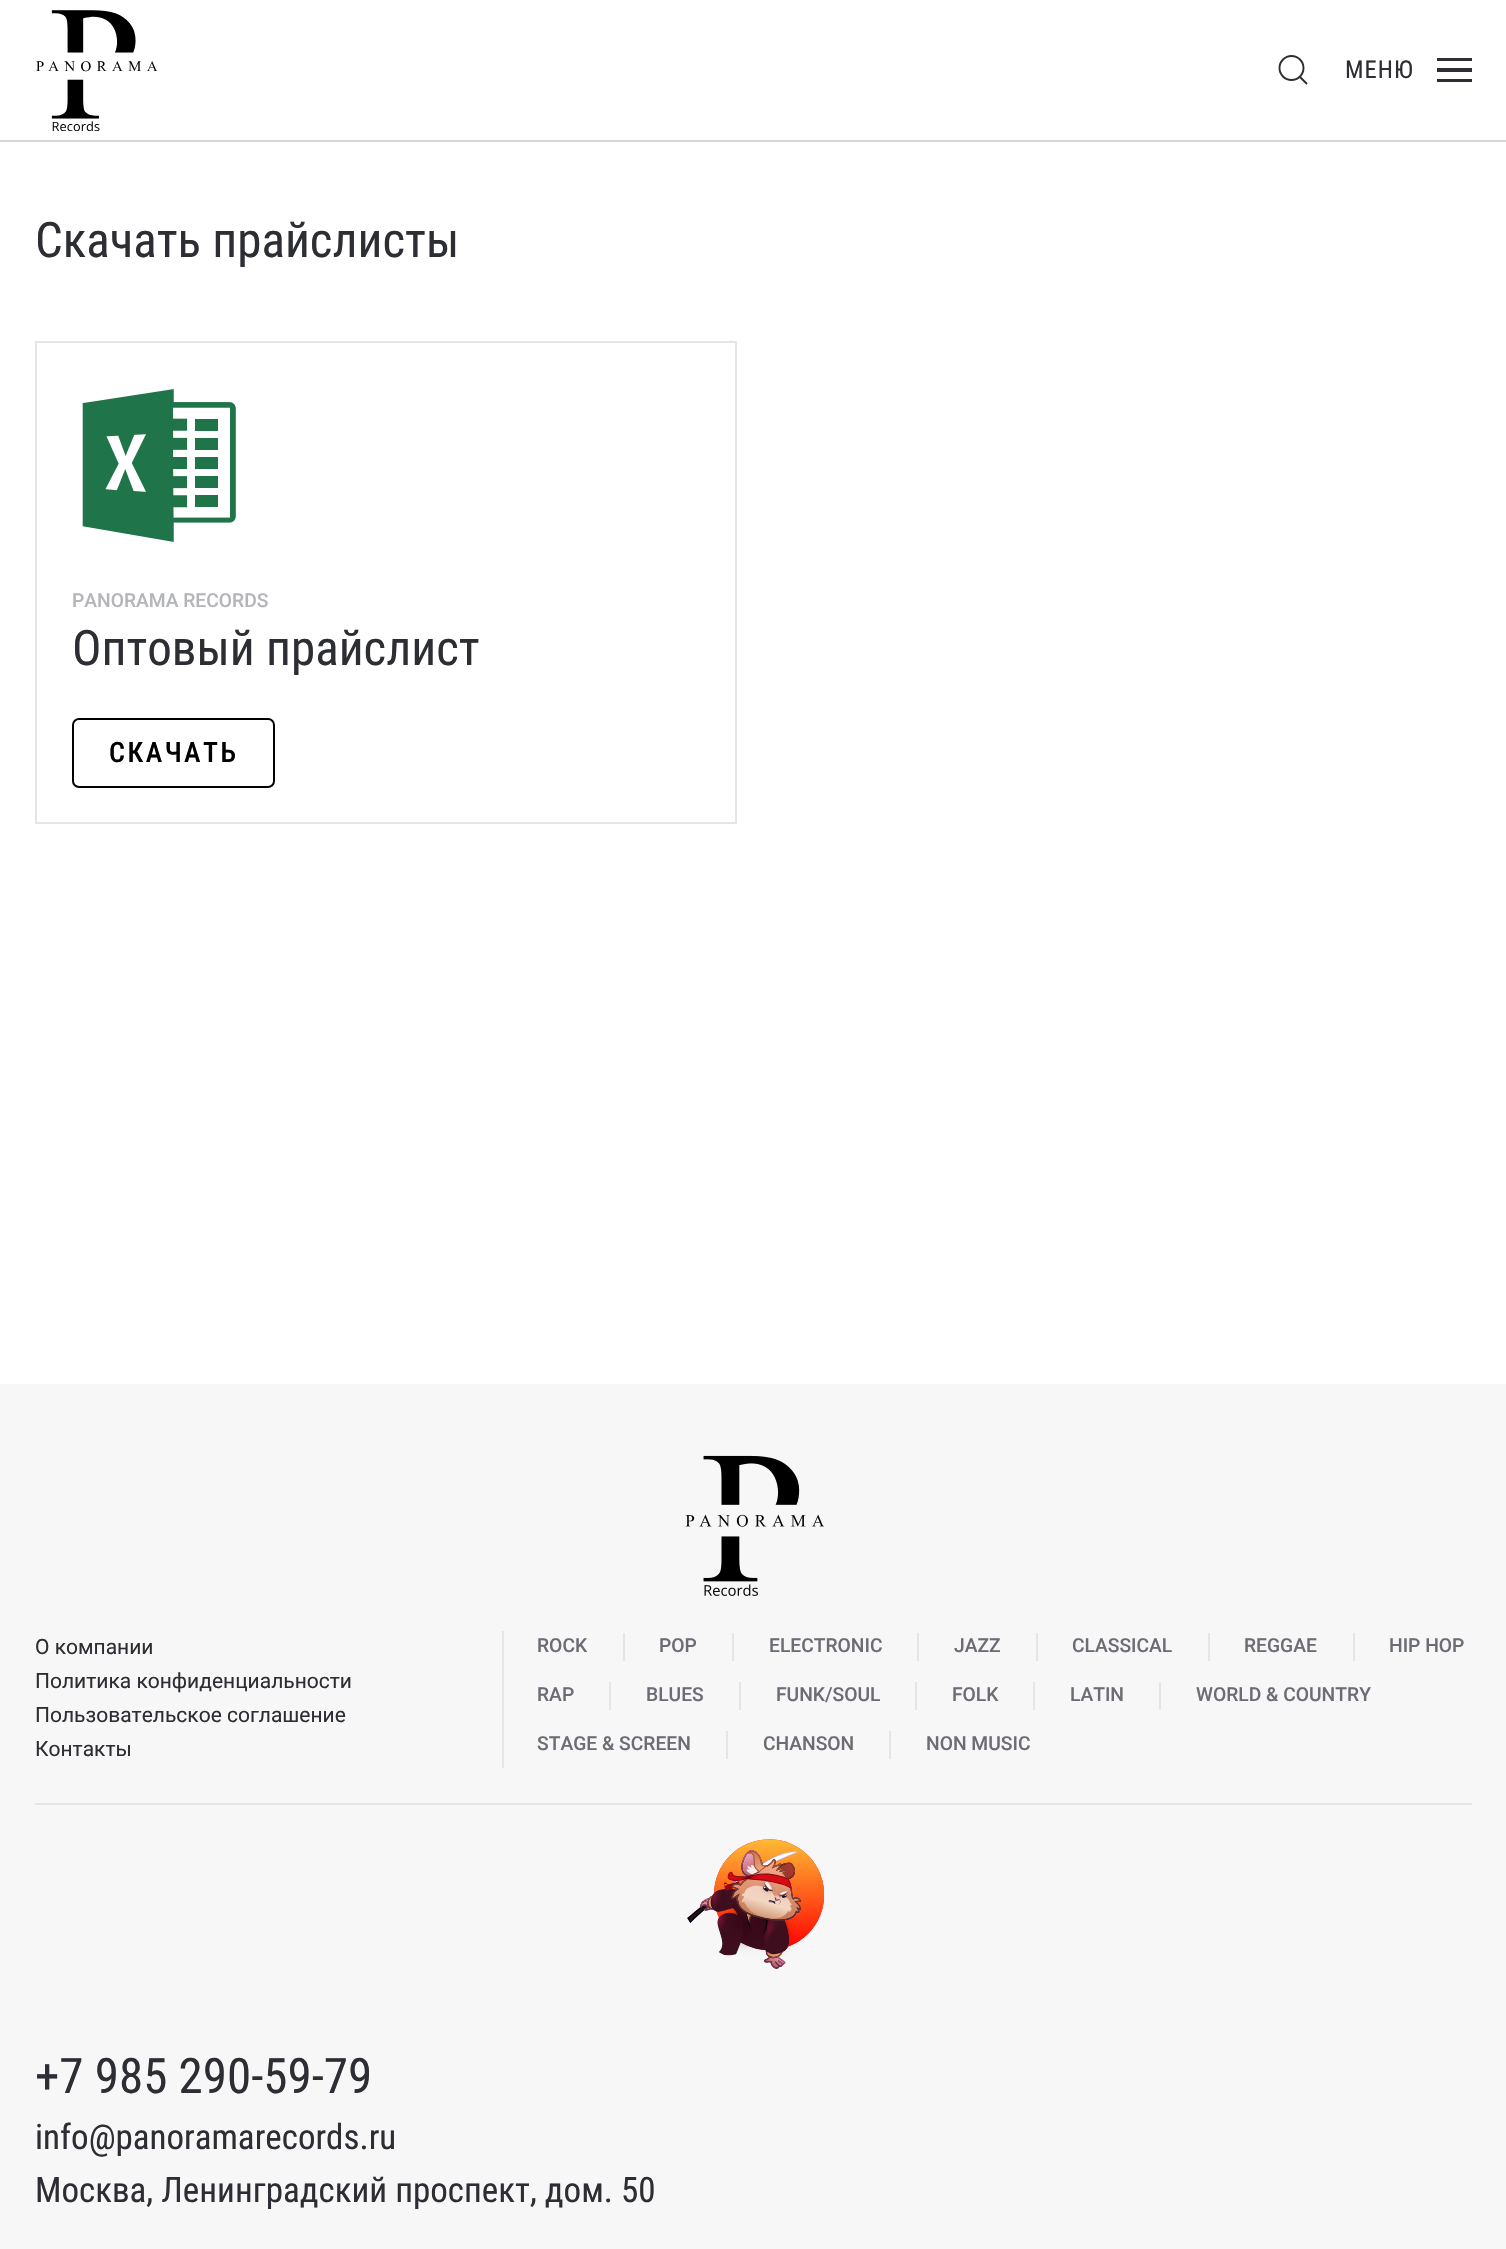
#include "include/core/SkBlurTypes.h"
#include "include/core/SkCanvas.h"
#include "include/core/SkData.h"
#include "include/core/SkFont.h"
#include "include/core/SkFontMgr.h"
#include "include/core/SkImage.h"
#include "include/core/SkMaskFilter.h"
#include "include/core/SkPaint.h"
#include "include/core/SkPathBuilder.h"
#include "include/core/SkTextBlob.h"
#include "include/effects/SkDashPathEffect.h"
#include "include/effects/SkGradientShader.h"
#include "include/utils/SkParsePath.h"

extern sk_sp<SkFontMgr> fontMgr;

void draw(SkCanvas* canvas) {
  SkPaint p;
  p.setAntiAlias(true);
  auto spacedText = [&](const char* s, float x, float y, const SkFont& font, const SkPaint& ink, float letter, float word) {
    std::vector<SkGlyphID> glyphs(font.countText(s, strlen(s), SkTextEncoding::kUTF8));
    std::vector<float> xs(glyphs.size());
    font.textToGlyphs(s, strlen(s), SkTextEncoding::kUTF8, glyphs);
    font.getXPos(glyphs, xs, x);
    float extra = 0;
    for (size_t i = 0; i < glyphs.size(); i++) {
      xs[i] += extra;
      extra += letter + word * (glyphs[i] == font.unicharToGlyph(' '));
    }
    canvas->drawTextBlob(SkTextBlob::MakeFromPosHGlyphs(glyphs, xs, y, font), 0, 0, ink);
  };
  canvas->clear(SK_ColorWHITE);
  p.setColor(SkColorSetRGB(214, 214, 214));
  canvas->drawRect(SkRect::MakeLTRB(0, 140, 1506, 142), p);
  canvas->drawImageRect(SkImages::DeferredFromEncodedData(SkData::MakeFromFileName("images/1.png")), SkRect::MakeLTRB(36, 10, 158, 131), SkSamplingOptions());
  p.setStyle(SkPaint::kStroke_Style);
  p.setStrokeWidth(1.9f);
  p.setColor(SkColorSetRGB(45, 46, 51));
  canvas->drawCircle(1291.5f, 68, 12, p);
  canvas->drawPath(SkPathBuilder().moveTo(1300, 77).lineTo(1307, 84).close().detach(), p);
  p.setStyle(SkPaint::kFill_Style);
  canvas->drawRect(SkRect::MakeLTRB(1437, 58, 1472, 61), p);
  canvas->drawRect(SkRect::MakeLTRB(1437, 68, 1472, 72), p);
  canvas->drawRect(SkRect::MakeLTRB(1437, 79, 1472, 82), p);
  p.setStyle(SkPaint::kStroke_Style);
  p.setStrokeWidth(2);
  p.setColor(SkColorSetRGB(229, 229, 231));
  canvas->drawRect(SkRect::MakeLTRB(36, 342, 736, 823), p);
  canvas->drawImageRect(SkImages::DeferredFromEncodedData(SkData::MakeFromFileName("images/2.png")), SkRect::MakeLTRB(82, 389, 236, 542), SkSamplingOptions());
  p.setColor(SK_ColorBLACK);
  canvas->drawRoundRect(SkRect::MakeLTRB(73, 719, 274, 787), 6, 6, p);
  p.setStyle(SkPaint::kFill_Style);
  p.setColor(SkColorSetRGB(247, 247, 247));
  canvas->drawRect(SkRect::MakeLTRB(0, 1384, 1506, 2249), p);
  canvas->drawImageRect(SkImages::DeferredFromEncodedData(SkData::MakeFromFileName("images/3.png")), SkRect::MakeLTRB(685, 1455, 824, 1596), SkSamplingOptions());
  p.setColor(SkColorSetRGB(229, 229, 231));
  canvas->drawRect(SkRect::MakeLTRB(502, 1631, 504, 1768), p);
  canvas->drawRect(SkRect::MakeLTRB(623, 1633, 625, 1661), p);
  canvas->drawRect(SkRect::MakeLTRB(732, 1633, 734, 1661), p);
  canvas->drawRect(SkRect::MakeLTRB(917, 1633, 919, 1661), p);
  canvas->drawRect(SkRect::MakeLTRB(1036, 1633, 1038, 1661), p);
  canvas->drawRect(SkRect::MakeLTRB(1208, 1633, 1210, 1661), p);
  canvas->drawRect(SkRect::MakeLTRB(1353, 1633, 1355, 1661), p);
  canvas->drawRect(SkRect::MakeLTRB(609, 1682, 611, 1710), p);
  canvas->drawRect(SkRect::MakeLTRB(739, 1682, 741, 1710), p);
  canvas->drawRect(SkRect::MakeLTRB(915, 1682, 917, 1710), p);
  canvas->drawRect(SkRect::MakeLTRB(1033, 1682, 1035, 1710), p);
  canvas->drawRect(SkRect::MakeLTRB(1159, 1682, 1161, 1710), p);
  canvas->drawRect(SkRect::MakeLTRB(726, 1731, 728, 1759), p);
  canvas->drawRect(SkRect::MakeLTRB(889, 1731, 891, 1759), p);
  canvas->drawRect(SkRect::MakeLTRB(35, 1803, 1472, 1805), p);
  canvas->drawImageRect(SkImages::DeferredFromEncodedData(SkData::MakeFromFileName("images/4.png")), SkRect::MakeLTRB(687, 1839, 824, 1969), SkSamplingOptions());
  SkFont font1(fontMgr->matchFamilyStyle("Roboto Condensed", SkFontStyle::Normal()), 24.5f);
  font1.setSubpixel(true);
  p.setColor(SkColorSetRGB(45, 46, 51));
  spacedText("МЕНЮ", 1345, 78, font1, p, 1, 0);
  SkFont font2(fontMgr->matchFamilyStyle("Roboto Condensed", SkFontStyle::Normal()), 49);
  font2.setSubpixel(true);
  canvas->drawString("Скачать прайслисты", 35, 257, font2, p);
  SkFont font3(fontMgr->matchFamilyStyle("Roboto", SkFontStyle(500, SkFontStyle::kNormal_Width, SkFontStyle::kUpright_Slant)), 19.25f);
  font3.setSubpixel(true);
  p.setColor(SkColorSetRGB(180, 181, 186));
  canvas->drawString("PANORAMA RECORDS", 72, 607, font3, p);
  p.setColor(SkColorSetRGB(45, 46, 51));
  canvas->drawString("Оптовый прайслист", 72, 665, font2, p);
  SkFont font4(fontMgr->matchFamilyStyle("Roboto Condensed", SkFontStyle(500, SkFontStyle::kNormal_Width, SkFontStyle::kUpright_Slant)), 28);
  font4.setSubpixel(true);
  p.setColor(SK_ColorBLACK);
  spacedText("СКАЧАТЬ", 109, 762, font4, p, 2.5f, 0);
  SkFont font5(fontMgr->matchFamilyStyle("Roboto", SkFontStyle::Normal()), 21);
  font5.setSubpixel(true);
  p.setColor(SkColorSetRGB(45, 46, 51));
  canvas->drawString("О компании", 35, 1654, font5, p);
  canvas->drawString("Политика конфиденциальности", 35, 1688, font5, p);
  canvas->drawString("Пользовательское соглашение", 35, 1722, font5, p);
  canvas->drawString("Контакты", 35, 1756, font5, p);
  p.setColor(SkColorSetRGB(108, 109, 116));
  canvas->drawString("ROCK", 537, 1652, font3, p);
  canvas->drawString("POP", 659, 1652, font3, p);
  canvas->drawString("ELECTRONIC", 769, 1652, font3, p);
  canvas->drawString("JAZZ", 954, 1652, font3, p);
  canvas->drawString("CLASSICAL", 1072, 1652, font3, p);
  canvas->drawString("REGGAE", 1244, 1652, font3, p);
  canvas->drawString("HIP HOP", 1389, 1652, font3, p);
  canvas->drawString("RAP", 537, 1701, font3, p);
  canvas->drawString("BLUES", 646, 1701, font3, p);
  canvas->drawString("FUNK/SOUL", 776, 1701, font3, p);
  canvas->drawString("FOLK", 952, 1701, font3, p);
  canvas->drawString("LATIN", 1070, 1701, font3, p);
  canvas->drawString("WORLD & COUNTRY", 1196, 1701, font3, p);
  canvas->drawString("STAGE & SCREEN", 537, 1750, font3, p);
  canvas->drawString("CHANSON", 763, 1750, font3, p);
  canvas->drawString("NON MUSIC", 926, 1750, font3, p);
  p.setColor(SkColorSetRGB(45, 46, 51));
  canvas->drawString("+7 985 290-59-79", 35, 2093, font2, p);
  SkFont font6(fontMgr->matchFamilyStyle("Roboto Condensed", SkFontStyle::Normal()), 35);
  font6.setSubpixel(true);
  canvas->drawString("info@panoramarecords.ru", 35, 2149, font6, p);
  canvas->drawString("Москва, Ленинградский проспект, дом. 50", 35, 2202, font6, p);
}
